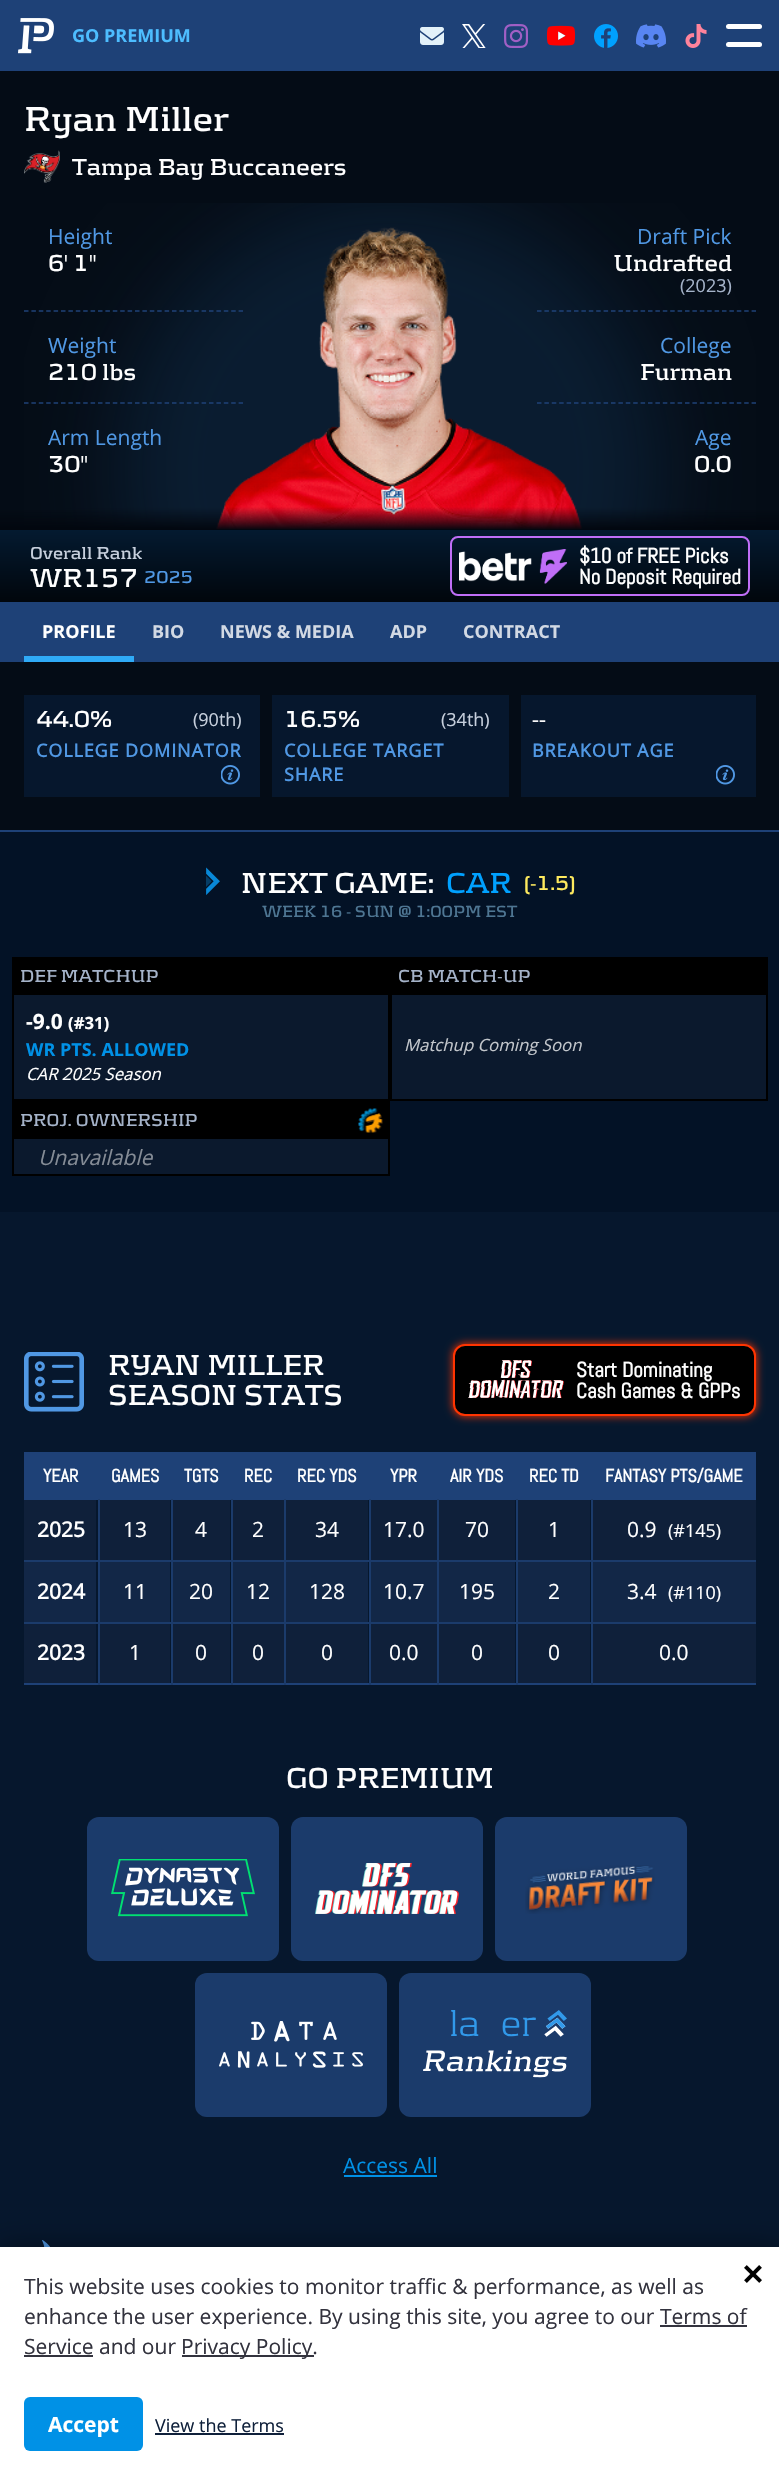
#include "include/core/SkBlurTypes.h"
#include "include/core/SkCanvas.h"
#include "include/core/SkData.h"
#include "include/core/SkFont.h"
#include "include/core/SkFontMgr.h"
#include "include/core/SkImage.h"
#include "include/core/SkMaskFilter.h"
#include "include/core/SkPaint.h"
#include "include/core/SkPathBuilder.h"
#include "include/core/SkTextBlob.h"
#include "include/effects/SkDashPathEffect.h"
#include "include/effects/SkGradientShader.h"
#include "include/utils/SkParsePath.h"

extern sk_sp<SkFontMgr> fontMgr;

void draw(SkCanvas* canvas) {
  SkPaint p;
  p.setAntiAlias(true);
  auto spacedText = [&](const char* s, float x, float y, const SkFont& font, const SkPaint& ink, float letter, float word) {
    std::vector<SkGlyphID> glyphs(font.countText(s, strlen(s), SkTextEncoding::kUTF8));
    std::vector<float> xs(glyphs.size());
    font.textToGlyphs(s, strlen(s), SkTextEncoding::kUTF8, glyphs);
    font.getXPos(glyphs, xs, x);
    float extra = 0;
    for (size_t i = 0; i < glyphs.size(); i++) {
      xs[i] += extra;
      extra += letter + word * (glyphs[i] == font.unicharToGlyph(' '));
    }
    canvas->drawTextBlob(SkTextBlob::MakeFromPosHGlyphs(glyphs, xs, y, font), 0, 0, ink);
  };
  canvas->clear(SkColorSetRGB(6, 23, 45));
  p.setColor(SkColorSetRGB(4, 12, 22));
  canvas->drawRect(SkRect::MakeLTRB(0, 71, 779, 530), p);
  canvas->drawImageRect(SkImages::DeferredFromEncodedData(SkData::MakeFromFileName("images/9.png")), SkRect::MakeLTRB(24, 150, 60, 183), SkSamplingOptions());
  canvas->drawRect(SkRect::MakeLTRB(0, 662, 779, 830), p);
  canvas->save();
  canvas->clipRect(SkRect::MakeLTRB(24, 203, 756, 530));
  p.setColor(SkColorSetARGB(77, 24, 67, 109));
  p.setMaskFilter(SkMaskFilter::MakeBlur(kNormal_SkBlurStyle, 45));
  canvas->drawRoundRect(SkRect::MakeLTRB(116, 197, 665, 746), 274.5f, 274.5f, p);
  p.setMaskFilter(nullptr);
  canvas->restore();
  p.setColor(SkColorSetRGB(30, 65, 119));
  canvas->drawRect(SkRect::MakeLTRB(0, 0, 779, 71), p);
  canvas->drawImageRect(SkImages::DeferredFromEncodedData(SkData::MakeFromFileName("images/1.png")), SkRect::MakeLTRB(18, 18, 54, 54), SkSamplingOptions());
  canvas->drawImageRect(SkImages::DeferredFromEncodedData(SkData::MakeFromFileName("images/2.png")), SkRect::MakeLTRB(420, 27, 444, 45), SkSamplingOptions());
  canvas->drawImageRect(SkImages::DeferredFromEncodedData(SkData::MakeFromFileName("images/3.png")), SkRect::MakeLTRB(462, 24, 486, 48), SkSamplingOptions());
  canvas->drawImageRect(SkImages::DeferredFromEncodedData(SkData::MakeFromFileName("images/4.png")), SkRect::MakeLTRB(504, 24, 528, 48), SkSamplingOptions());
  canvas->drawImageRect(SkImages::DeferredFromEncodedData(SkData::MakeFromFileName("images/5.png")), SkRect::MakeLTRB(546, 25, 576, 46), SkSamplingOptions());
  canvas->drawImageRect(SkImages::DeferredFromEncodedData(SkData::MakeFromFileName("images/6.png")), SkRect::MakeLTRB(594, 24, 618, 48), SkSamplingOptions());
  canvas->drawImageRect(SkImages::DeferredFromEncodedData(SkData::MakeFromFileName("images/7.png")), SkRect::MakeLTRB(636, 24, 666, 48), SkSamplingOptions());
  canvas->drawImageRect(SkImages::DeferredFromEncodedData(SkData::MakeFromFileName("images/8.png")), SkRect::MakeLTRB(685, 24, 707, 48), SkSamplingOptions());
  p.setColor(SK_ColorWHITE);
  canvas->drawRoundRect(SkRect::MakeLTRB(726, 24, 762, 29), 2.5f, 2.5f, p);
  canvas->drawRoundRect(SkRect::MakeLTRB(726, 42, 762, 47), 2.5f, 2.5f, p);
  p.setStyle(SkPaint::kStroke_Style);
  p.setStrokeWidth(1.5f);
  p.setColor(SkColorSetRGB(30, 65, 119));
  p.setPathEffect(SkDashPathEffect::Make({{4.5f, 2.9f}}, 0));
  canvas->drawPath(SkPathBuilder().moveTo(24, 311).lineTo(243, 311).detach(), p);
  p.setPathEffect(nullptr);
  p.setPathEffect(SkDashPathEffect::Make({{4.5f, 2.9f}}, 0));
  canvas->drawPath(SkPathBuilder().moveTo(537, 311).lineTo(756, 311).detach(), p);
  p.setPathEffect(nullptr);
  p.setPathEffect(SkDashPathEffect::Make({{4.5f, 2.9f}}, 0));
  canvas->drawPath(SkPathBuilder().moveTo(24, 403).lineTo(243, 403).detach(), p);
  p.setPathEffect(nullptr);
  p.setPathEffect(SkDashPathEffect::Make({{4.5f, 2.9f}}, 0));
  canvas->drawPath(SkPathBuilder().moveTo(537, 403).lineTo(756, 403).detach(), p);
  p.setPathEffect(nullptr);
  canvas->drawImageRect(SkImages::DeferredFromEncodedData(SkData::MakeFromFileName("images/10.png")), SkRect::MakeLTRB(216, 227, 583, 530), SkSamplingOptions());
  p.setStyle(SkPaint::kFill_Style);
  {
    const SkColor colors[] = {SkColorSetRGB(1, 6, 12), SkColorSetRGB(4, 26, 48)};
    const float stops[] = {0, 1};
    const SkPoint ends[] = {{390, 602}, {390, 530}};
    p.setShader(SkGradientShader::MakeLinear(ends, colors, stops, 2, SkTileMode::kClamp));
    p.setAlpha(255);
  }
  canvas->drawRect(SkRect::MakeLTRB(0, 530, 779, 602), p);
  p.setStyle(SkPaint::kStroke_Style);
  p.setStrokeWidth(2);
  p.setShader(nullptr);
  p.setColor(SkColorSetRGB(192, 110, 247));
  canvas->drawRoundRect(SkRect::MakeLTRB(451, 537, 749, 595), 7, 7, p);
  canvas->drawImageRect(SkImages::DeferredFromEncodedData(SkData::MakeFromFileName("images/11.png")), SkRect::MakeLTRB(459, 549, 567, 584), SkSamplingOptions());
  p.setStyle(SkPaint::kFill_Style);
  {
    const SkColor colors[] = {SkColorSetRGB(1, 6, 14), SkColorSetARGB(0, 1, 6, 14)};
    const float stops[] = {0, 1};
    const SkPoint ends[] = {{390, 530}, {390, 507}};
    p.setShader(SkGradientShader::MakeLinear(ends, colors, stops, 2, SkTileMode::kClamp));
    p.setAlpha(255);
  }
  canvas->drawRect(SkRect::MakeLTRB(0, 507, 779, 530), p);
  p.setShader(nullptr);
  p.setColor(SkColorSetRGB(30, 65, 119));
  canvas->drawRect(SkRect::MakeLTRB(0, 602, 779, 662), p);
  p.setColor(SkColorSetRGB(47, 170, 247));
  canvas->drawRect(SkRect::MakeLTRB(24, 656, 134, 662), p);
  p.setColor(SkColorSetRGB(6, 23, 45));
  canvas->drawRect(SkRect::MakeLTRB(24, 695, 260, 797), p);
  canvas->drawImageRect(SkImages::DeferredFromEncodedData(SkData::MakeFromFileName("images/12.png")), SkRect::MakeLTRB(221, 765, 240, 785), SkSamplingOptions());
  canvas->drawRect(SkRect::MakeLTRB(272, 695, 509, 797), p);
  canvas->drawRect(SkRect::MakeLTRB(521, 695, 756, 797), p);
  canvas->drawImageRect(SkImages::DeferredFromEncodedData(SkData::MakeFromFileName("images/12.png")), SkRect::MakeLTRB(716, 765, 735, 785), SkSamplingOptions());
  p.setColor(SkColorSetRGB(3, 18, 38));
  canvas->drawRect(SkRect::MakeLTRB(0, 832, 779, 1212), p);
  p.setColor(SkColorSetRGB(30, 65, 119));
  canvas->drawRect(SkRect::MakeLTRB(0, 830, 779, 832), p);
  canvas->drawImageRect(SkImages::DeferredFromEncodedData(SkData::MakeFromFileName("images/13.png")), SkRect::MakeLTRB(206, 867, 220, 895), SkSamplingOptions());
  p.setColor(SkColorSetRGB(11, 25, 45));
  canvas->drawRect(SkRect::MakeLTRB(14, 995, 388, 1099), p);
  p.setStyle(SkPaint::kStroke_Style);
  p.setColor(SK_ColorBLACK);
  canvas->drawRect(SkRect::MakeLTRB(13, 958, 389, 1100), p);
  p.setStyle(SkPaint::kFill_Style);
  canvas->drawRect(SkRect::MakeLTRB(14, 959, 388, 995), p);
  p.setColor(SkColorSetRGB(11, 25, 45));
  canvas->drawRect(SkRect::MakeLTRB(392, 995, 766, 1099), p);
  p.setStyle(SkPaint::kStroke_Style);
  p.setColor(SK_ColorBLACK);
  canvas->drawRect(SkRect::MakeLTRB(391, 958, 767, 1100), p);
  p.setStyle(SkPaint::kFill_Style);
  canvas->drawRect(SkRect::MakeLTRB(392, 959, 766, 995), p);
  p.setColor(SkColorSetRGB(11, 25, 45));
  canvas->drawRect(SkRect::MakeLTRB(14, 1139, 388, 1174), p);
  p.setStyle(SkPaint::kStroke_Style);
  p.setColor(SK_ColorBLACK);
  canvas->drawRect(SkRect::MakeLTRB(13, 1102, 389, 1175), p);
  p.setStyle(SkPaint::kFill_Style);
  canvas->drawRect(SkRect::MakeLTRB(14, 1103, 388, 1139), p);
  canvas->drawImageRect(SkImages::DeferredFromEncodedData(SkData::MakeFromFileName("images/14.png")), SkRect::MakeLTRB(358, 1108, 383, 1133), SkSamplingOptions());
  canvas->drawImageRect(SkImages::DeferredFromEncodedData(SkData::MakeFromFileName("images/15.png")), SkRect::MakeLTRB(24, 1352, 84, 1412), SkSamplingOptions());
  p.setColor(SkColorSetRGB(255, 52, 1));
  p.setMaskFilter(SkMaskFilter::MakeBlur(kNormal_SkBlurStyle, 4.5f));
  canvas->drawRoundRect(SkRect::MakeLTRB(453, 1344, 756, 1416), 12, 12, p);
  p.setMaskFilter(nullptr);
  p.setColor(SK_ColorBLACK);
  canvas->drawRoundRect(SkRect::MakeLTRB(454, 1345, 755, 1415), 11, 11, p);
  p.setStyle(SkPaint::kStroke_Style);
  p.setColor(SkColorSetRGB(255, 52, 1));
  canvas->drawRoundRect(SkRect::MakeLTRB(454, 1345, 755, 1415), 11, 11, p);
  canvas->drawImageRect(SkImages::DeferredFromEncodedData(SkData::MakeFromFileName("images/16.png")), SkRect::MakeLTRB(468, 1360, 564, 1399), SkSamplingOptions());
  p.setStyle(SkPaint::kFill_Style);
  p.setColor(SkColorSetRGB(30, 65, 119));
  canvas->drawRect(SkRect::MakeLTRB(24, 1452, 756, 1500), p);
  p.setColor(SkColorSetRGB(27, 59, 107));
  canvas->drawRect(SkRect::MakeLTRB(24, 1560, 756, 1562), p);
  p.setColor(SkColorSetRGB(15, 32, 58));
  canvas->drawRect(SkRect::MakeLTRB(24, 1500, 96, 1560), p);
  canvas->drawRect(SkRect::MakeLTRB(100, 1500, 170, 1560), p);
  canvas->drawRect(SkRect::MakeLTRB(173, 1500, 230, 1560), p);
  canvas->drawRect(SkRect::MakeLTRB(233, 1500, 284, 1560), p);
  canvas->drawRect(SkRect::MakeLTRB(286, 1500, 368, 1560), p);
  canvas->drawRect(SkRect::MakeLTRB(371, 1500, 437, 1560), p);
  canvas->drawRect(SkRect::MakeLTRB(439, 1500, 515, 1560), p);
  canvas->drawRect(SkRect::MakeLTRB(518, 1500, 590, 1560), p);
  canvas->drawRect(SkRect::MakeLTRB(593, 1500, 756, 1560), p);
  p.setColor(SkColorSetRGB(27, 59, 107));
  canvas->drawRect(SkRect::MakeLTRB(24, 1622, 756, 1624), p);
  p.setColor(SkColorSetRGB(18, 39, 71));
  canvas->drawRect(SkRect::MakeLTRB(24, 1562, 96, 1622), p);
  canvas->drawRect(SkRect::MakeLTRB(100, 1562, 170, 1622), p);
  canvas->drawRect(SkRect::MakeLTRB(173, 1562, 230, 1622), p);
  canvas->drawRect(SkRect::MakeLTRB(233, 1562, 284, 1622), p);
  canvas->drawRect(SkRect::MakeLTRB(286, 1562, 368, 1622), p);
  canvas->drawRect(SkRect::MakeLTRB(371, 1562, 437, 1622), p);
  canvas->drawRect(SkRect::MakeLTRB(439, 1562, 515, 1622), p);
  canvas->drawRect(SkRect::MakeLTRB(518, 1562, 590, 1622), p);
  canvas->drawRect(SkRect::MakeLTRB(593, 1562, 756, 1622), p);
  p.setColor(SkColorSetRGB(30, 65, 119));
  canvas->drawRect(SkRect::MakeLTRB(24, 1683, 756, 1685), p);
  p.setColor(SkColorSetRGB(15, 32, 58));
  canvas->drawRect(SkRect::MakeLTRB(24, 1624, 96, 1683), p);
  p.setColor(SkColorSetRGB(27, 59, 107));
  canvas->drawRect(SkRect::MakeLTRB(98, 1499, 100, 1685), p);
  p.setColor(SkColorSetRGB(15, 32, 58));
  canvas->drawRect(SkRect::MakeLTRB(100, 1624, 170, 1683), p);
  p.setColor(SkColorSetRGB(27, 59, 107));
  canvas->drawRect(SkRect::MakeLTRB(171, 1499, 173, 1685), p);
  p.setColor(SkColorSetRGB(15, 32, 58));
  canvas->drawRect(SkRect::MakeLTRB(173, 1624, 230, 1683), p);
  p.setColor(SkColorSetRGB(27, 59, 107));
  canvas->drawRect(SkRect::MakeLTRB(231, 1499, 233, 1685), p);
  p.setColor(SkColorSetRGB(15, 32, 58));
  canvas->drawRect(SkRect::MakeLTRB(233, 1624, 284, 1683), p);
  p.setColor(SkColorSetRGB(27, 59, 107));
  canvas->drawRect(SkRect::MakeLTRB(284, 1499, 286, 1685), p);
  p.setColor(SkColorSetRGB(15, 32, 58));
  canvas->drawRect(SkRect::MakeLTRB(286, 1624, 368, 1683), p);
  p.setColor(SkColorSetRGB(27, 59, 107));
  canvas->drawRect(SkRect::MakeLTRB(369, 1499, 371, 1685), p);
  p.setColor(SkColorSetRGB(15, 32, 58));
  canvas->drawRect(SkRect::MakeLTRB(371, 1624, 437, 1683), p);
  p.setColor(SkColorSetRGB(27, 59, 107));
  canvas->drawRect(SkRect::MakeLTRB(437, 1499, 439, 1685), p);
  p.setColor(SkColorSetRGB(15, 32, 58));
  canvas->drawRect(SkRect::MakeLTRB(439, 1624, 515, 1683), p);
  p.setColor(SkColorSetRGB(27, 59, 107));
  canvas->drawRect(SkRect::MakeLTRB(516, 1499, 518, 1685), p);
  p.setColor(SkColorSetRGB(15, 32, 58));
  canvas->drawRect(SkRect::MakeLTRB(518, 1624, 590, 1683), p);
  p.setColor(SkColorSetRGB(27, 59, 107));
  canvas->drawRect(SkRect::MakeLTRB(591, 1499, 593, 1685), p);
  p.setColor(SkColorSetRGB(15, 32, 58));
  canvas->drawRect(SkRect::MakeLTRB(593, 1624, 756, 1683), p);
  p.setColor(SkColorSetRGB(27, 59, 107));
  canvas->drawRoundRect(SkRect::MakeLTRB(87, 1817, 279, 1961), 12, 12, p);
  canvas->drawImageRect(SkImages::DeferredFromEncodedData(SkData::MakeFromFileName("images/17.png")), SkRect::MakeLTRB(111, 1859, 255, 1917), SkSamplingOptions());
  canvas->drawRoundRect(SkRect::MakeLTRB(291, 1817, 483, 1961), 12, 12, p);
  canvas->drawImageRect(SkImages::DeferredFromEncodedData(SkData::MakeFromFileName("images/18.png")), SkRect::MakeLTRB(315, 1863, 459, 1914), SkSamplingOptions());
  canvas->drawRoundRect(SkRect::MakeLTRB(495, 1817, 687, 1961), 12, 12, p);
  canvas->drawImageRect(SkImages::DeferredFromEncodedData(SkData::MakeFromFileName("images/19.png")), SkRect::MakeLTRB(525, 1865, 655, 1914), SkSamplingOptions());
  canvas->drawRoundRect(SkRect::MakeLTRB(195, 1973, 387, 2117), 12, 12, p);
  canvas->drawImageRect(SkImages::DeferredFromEncodedData(SkData::MakeFromFileName("images/20.png")), SkRect::MakeLTRB(219, 2021, 363, 2068), SkSamplingOptions());
  canvas->drawRoundRect(SkRect::MakeLTRB(399, 1973, 591, 2117), 12, 12, p);
  canvas->drawImageRect(SkImages::DeferredFromEncodedData(SkData::MakeFromFileName("images/21.png")), SkRect::MakeLTRB(423, 2010, 567, 2078), SkSamplingOptions());
  p.setColor(SkColorSetRGB(0, 145, 230));
  canvas->drawRect(SkRect::MakeLTRB(344, 2175, 437, 2177), p);
  canvas->drawImageRect(SkImages::DeferredFromEncodedData(SkData::MakeFromFileName("images/22.png")), SkRect::MakeLTRB(42, 2240, 50, 2247), SkSamplingOptions());
  p.setColor(SkColorSetARGB(102, 0, 0, 0));
  p.setMaskFilter(SkMaskFilter::MakeBlur(kNormal_SkBlurStyle, 13.5f));
  canvas->drawRect(SkRect::MakeLTRB(0, 2247, 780, 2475), p);
  p.setMaskFilter(nullptr);
  p.setColor(SK_ColorWHITE);
  canvas->drawRect(SkRect::MakeLTRB(0, 2247, 779, 2474), p);
  p.setColor(SkColorSetRGB(51, 51, 62));
  canvas->drawRect(SkRect::MakeLTRB(660, 2325, 747, 2327), p);
  canvas->drawRect(SkRect::MakeLTRB(24, 2355, 93, 2357), p);
  canvas->drawRect(SkRect::MakeLTRB(182, 2355, 314, 2357), p);
  canvas->drawImageRect(SkImages::DeferredFromEncodedData(SkData::MakeFromFileName("images/23.png")), SkRect::MakeLTRB(744, 2265, 762, 2283), SkSamplingOptions());
  p.setColor(SkColorSetRGB(0, 145, 230));
  canvas->drawRoundRect(SkRect::MakeLTRB(24, 2397, 143, 2451), 6, 6, p);
  p.setColor(SkColorSetRGB(15, 32, 58));
  canvas->drawRect(SkRect::MakeLTRB(155, 2433, 284, 2435), p);
  SkFont font1(fontMgr->matchFamilyStyle("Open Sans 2", SkFontStyle::Bold()), 18);
  font1.setSubpixel(true);
  p.setColor(SkColorSetRGB(77, 189, 255));
  canvas->drawString("GO PREMIUM", 72, 42, font1, p);
  SkFont font2(fontMgr->matchFamilyStyle("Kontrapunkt", SkFontStyle::Bold()), 36);
  font2.setSubpixel(true);
  p.setColor(SK_ColorWHITE);
  canvas->drawString("Ryan Miller", 24, 131, font2, p);
  SkFont font3(fontMgr->matchFamilyStyle("Kontrapunkt", SkFontStyle::Bold()), 24);
  font3.setSubpixel(true);
  canvas->drawString("Tampa Bay Buccaneers", 72, 175, font3, p);
  SkFont font4(fontMgr->matchFamilyStyle("Kontrapunkt", SkFontStyle::Bold()), 18);
  font4.setSubpixel(true);
  p.setColor(SkColorSetRGB(199, 208, 221));
  canvas->drawString("Overall Rank", 30, 559, font4, p);
  SkFont font5(fontMgr->matchFamilyStyle("Kontrapunkt", SkFontStyle::Bold()), 27);
  font5.setSubpixel(true);
  p.setColor(SK_ColorWHITE);
  canvas->drawString("WR157", 30, 587, font5, p);
  p.setColor(SkColorSetRGB(80, 152, 228));
  canvas->drawString("2025", 144, 583, font4, p);
  SkFont font6(fontMgr->matchFamilyStyle("Open Sans", SkFontStyle::Normal()), 21);
  font6.setSubpixel(true);
  canvas->drawString("Height", 48, 244, font6, p);
  p.setColor(SK_ColorWHITE);
  canvas->drawString("6' 1\"", 48, 271, font3, p);
  p.setColor(SkColorSetRGB(80, 152, 228));
  canvas->drawString("Draft Pick", 637, 244, font6, p);
  p.setColor(SK_ColorWHITE);
  canvas->drawString("Undrafted", 613, 271, font3, p);
  SkFont font7(fontMgr->matchFamilyStyle("Open Sans", SkFontStyle::Normal()), 18);
  font7.setSubpixel(true);
  p.setColor(SkColorSetRGB(165, 179, 201));
  canvas->drawString("(2023)", 680, 292, font7, p);
  p.setColor(SkColorSetRGB(80, 152, 228));
  canvas->drawString("Weight", 48, 353, font6, p);
  p.setColor(SK_ColorWHITE);
  canvas->drawString("210 lbs", 48, 380, font3, p);
  p.setColor(SkColorSetRGB(80, 152, 228));
  canvas->drawString("College", 660, 353, font6, p);
  p.setColor(SK_ColorWHITE);
  canvas->drawString("Furman", 640, 380, font3, p);
  p.setColor(SkColorSetRGB(80, 152, 228));
  canvas->drawString("Arm Length", 48, 445, font6, p);
  p.setColor(SK_ColorWHITE);
  canvas->drawString("30\"", 48, 472, font3, p);
  p.setColor(SkColorSetRGB(80, 152, 228));
  canvas->drawString("Age", 695, 445, font6, p);
  p.setColor(SK_ColorWHITE);
  canvas->drawString("0.0", 694, 472, font3, p);
  SkFont font8(fontMgr->matchFamilyStyle("Abel", SkFontStyle::Bold()), 21);
  font8.setSubpixel(true);
  canvas->drawString("$10 of FREE Picks", 579, 563, font8, p);
  canvas->drawString("No Deposit Required", 579, 584, font8, p);
  canvas->drawString("PROFILE", 42, 638, font1, p);
  p.setColor(SkColorSetRGB(210, 217, 228));
  canvas->drawString("BIO", 152, 638, font1, p);
  canvas->drawString("NEWS & MEDIA", 220, 638, font1, p);
  canvas->drawString("ADP", 390, 638, font1, p);
  canvas->drawString("CONTRACT", 463, 638, font1, p);
  p.setColor(SK_ColorWHITE);
  canvas->drawString("44.0%", 36, 727, font3, p);
  p.setColor(SkColorSetRGB(199, 208, 221));
  canvas->drawString("(90th)", 193, 726, font7, p);
  SkFont font9(fontMgr->matchFamilyStyle("Open Sans", SkFontStyle::Bold()), 18);
  font9.setSubpixel(true);
  p.setColor(SkColorSetRGB(80, 152, 228));
  spacedText("COLLEGE DOMINATOR", 36, 757, font9, p, 0.9f, 0);
  p.setColor(SK_ColorWHITE);
  canvas->drawString("16.5%", 284, 727, font3, p);
  p.setColor(SkColorSetRGB(199, 208, 221));
  canvas->drawString("(34th)", 441, 726, font7, p);
  p.setColor(SkColorSetRGB(80, 152, 228));
  spacedText("COLLEGE TARGET", 284, 757, font9, p, 0.9f, 0);
  spacedText("SHARE", 284, 781, font9, p, 0.9f, 0);
  p.setColor(SK_ColorWHITE);
  canvas->drawString("--", 532, 727, font3, p);
  p.setColor(SkColorSetRGB(80, 152, 228));
  spacedText("BREAKOUT AGE", 532, 757, font9, p, 0.9f, 0);
  SkFont font10(fontMgr->matchFamilyStyle("Kontrapunkt", SkFontStyle::Bold()), 30);
  font10.setSubpixel(true);
  p.setColor(SK_ColorWHITE);
  canvas->drawString("NEXT GAME:", 241, 893, font10, p);
  p.setColor(SkColorSetRGB(0, 161, 255));
  canvas->drawString("CAR", 446, 893, font10, p);
  SkFont font11(fontMgr->matchFamilyStyle("Kontrapunkt", SkFontStyle::Bold()), 21);
  font11.setSubpixel(true);
  p.setColor(SkColorSetRGB(254, 234, 94));
  canvas->drawString("(-1.5)", 524, 890, font11, p);
  SkFont font12(fontMgr->matchFamilyStyle("Kontrapunkt", SkFontStyle::Bold()), 16.75f);
  font12.setSubpixel(true);
  p.setColor(SkColorSetRGB(78, 118, 147));
  canvas->drawString("WEEK 16 - SUN @ 1:00PM EST", 262, 917, font12, p);
  p.setColor(SkColorSetRGB(165, 179, 201));
  canvas->drawString("DEF MATCHUP", 20, 982, font4, p);
  SkFont font13(fontMgr->matchFamilyStyle("Open Sans 2", SkFontStyle::Bold()), 21);
  font13.setSubpixel(true);
  p.setColor(SK_ColorWHITE);
  canvas->drawString("-9.0", 26, 1029, font13, p);
  SkFont font14(fontMgr->matchFamilyStyle("Open Sans 2", SkFontStyle::Bold()), 16.75f);
  font14.setSubpixel(true);
  canvas->drawString("(#31)", 68, 1029, font14, p);
  p.setColor(SkColorSetRGB(0, 145, 230));
  canvas->drawString("WR PTS. ALLOWED", 26, 1056, font1, p);
  SkFont font15(fontMgr->matchFamilyStyle("Open Sans", SkFontStyle::Italic()), 16.75f);
  font15.setSubpixel(true);
  p.setColor(SK_ColorWHITE);
  canvas->drawString("CAR 2025 Season", 26, 1080, font15, p);
  p.setColor(SkColorSetRGB(165, 179, 201));
  canvas->drawString("CB MATCH-UP", 398, 982, font4, p);
  p.setColor(SkColorSetRGB(194, 198, 203));
  canvas->drawString("Matchup Coming Soon", 404, 1051, font15, p);
  p.setColor(SkColorSetRGB(165, 179, 201));
  canvas->drawString("PROJ. OWNERSHIP", 20, 1126, font4, p);
  SkFont font16(fontMgr->matchFamilyStyle("Open Sans", SkFontStyle::Italic()), 21);
  font16.setSubpixel(true);
  p.setColor(SkColorSetRGB(133, 140, 150));
  canvas->drawString("Unavailable", 38, 1165, font16, p);
  p.setColor(SK_ColorWHITE);
  canvas->drawString("RYAN MILLER", 108, 1375, font10, p);
  canvas->drawString("SEASON STATS", 108, 1405, font10, p);
  canvas->drawString("Start Dominating", 576, 1377, font8, p);
  canvas->drawString("Cash Games & GPPs", 576, 1398, font8, p);
  SkFont font17(fontMgr->matchFamilyStyle("Abel", SkFontStyle::Bold()), 18);
  font17.setSubpixel(true);
  canvas->drawString("YEAR", 43, 1482, font17, p);
  canvas->drawString("GAMES", 111, 1482, font17, p);
  canvas->drawString("TGTS", 184, 1482, font17, p);
  canvas->drawString("REC", 244, 1482, font17, p);
  canvas->drawString("REC YDS", 297, 1482, font17, p);
  canvas->drawString("YPR", 390, 1482, font17, p);
  canvas->drawString("AIR YDS", 450, 1482, font17, p);
  canvas->drawString("REC TD", 529, 1482, font17, p);
  canvas->drawString("FANTASY PTS/GAME", 605, 1482, font17, p);
  SkFont font18(fontMgr->matchFamilyStyle("Open Sans", SkFontStyle::Bold()), 21);
  font18.setSubpixel(true);
  canvas->drawString("2025", 37, 1537, font18, p);
  canvas->drawString("13", 123, 1537, font6, p);
  canvas->drawString("4", 195, 1537, font6, p);
  canvas->drawString("2", 252, 1537, font6, p);
  canvas->drawString("34", 315, 1537, font6, p);
  canvas->drawString("17.0", 383, 1537, font6, p);
  canvas->drawString("70", 465, 1537, font6, p);
  canvas->drawString("1", 548, 1537, font6, p);
  canvas->drawString("0.9", 627, 1537, font6, p);
  canvas->drawString("(#145)", 668, 1537, font7, p);
  canvas->drawString("2024", 37, 1599, font18, p);
  canvas->drawString("11", 123, 1599, font6, p);
  canvas->drawString("20", 189, 1599, font6, p);
  canvas->drawString("12", 246, 1599, font6, p);
  canvas->drawString("128", 309, 1599, font6, p);
  canvas->drawString("10.7", 383, 1599, font6, p);
  canvas->drawString("195", 459, 1599, font6, p);
  canvas->drawString("2", 548, 1599, font6, p);
  canvas->drawString("3.4", 627, 1599, font6, p);
  canvas->drawString("(#110)", 668, 1599, font7, p);
  canvas->drawString("2023", 37, 1660, font18, p);
  canvas->drawString("1", 129, 1660, font6, p);
  canvas->drawString("0", 195, 1660, font6, p);
  canvas->drawString("0", 252, 1660, font6, p);
  canvas->drawString("0", 321, 1660, font6, p);
  canvas->drawString("0.0", 389, 1660, font6, p);
  canvas->drawString("0", 471, 1660, font6, p);
  canvas->drawString("0", 548, 1660, font6, p);
  canvas->drawString("0.0", 659, 1660, font6, p);
  canvas->drawString("GO PREMIUM", 286, 1788, font10, p);
  p.setColor(SkColorSetRGB(0, 145, 230));
  canvas->drawString("Access All", 343, 2173, font6, p);
  p.setColor(SkColorSetRGB(51, 51, 62));
  canvas->drawString("This website uses cookies to monitor traffic & performance, as well as", 24, 2294, font6, p);
  canvas->drawString("enhance the user experience. By using this site, you agree to our Terms of", 24, 2324, font6, p);
  canvas->drawString("Service and our", 24, 2354, font6, p);
  canvas->drawString("Privacy Policy.", 181, 2354, font6, p);
  p.setColor(SK_ColorWHITE);
  canvas->drawString("Accept", 48, 2432, font13, p);
  p.setColor(SkColorSetRGB(15, 32, 58));
  canvas->drawString("View the Terms", 155, 2432, font7, p);
}
